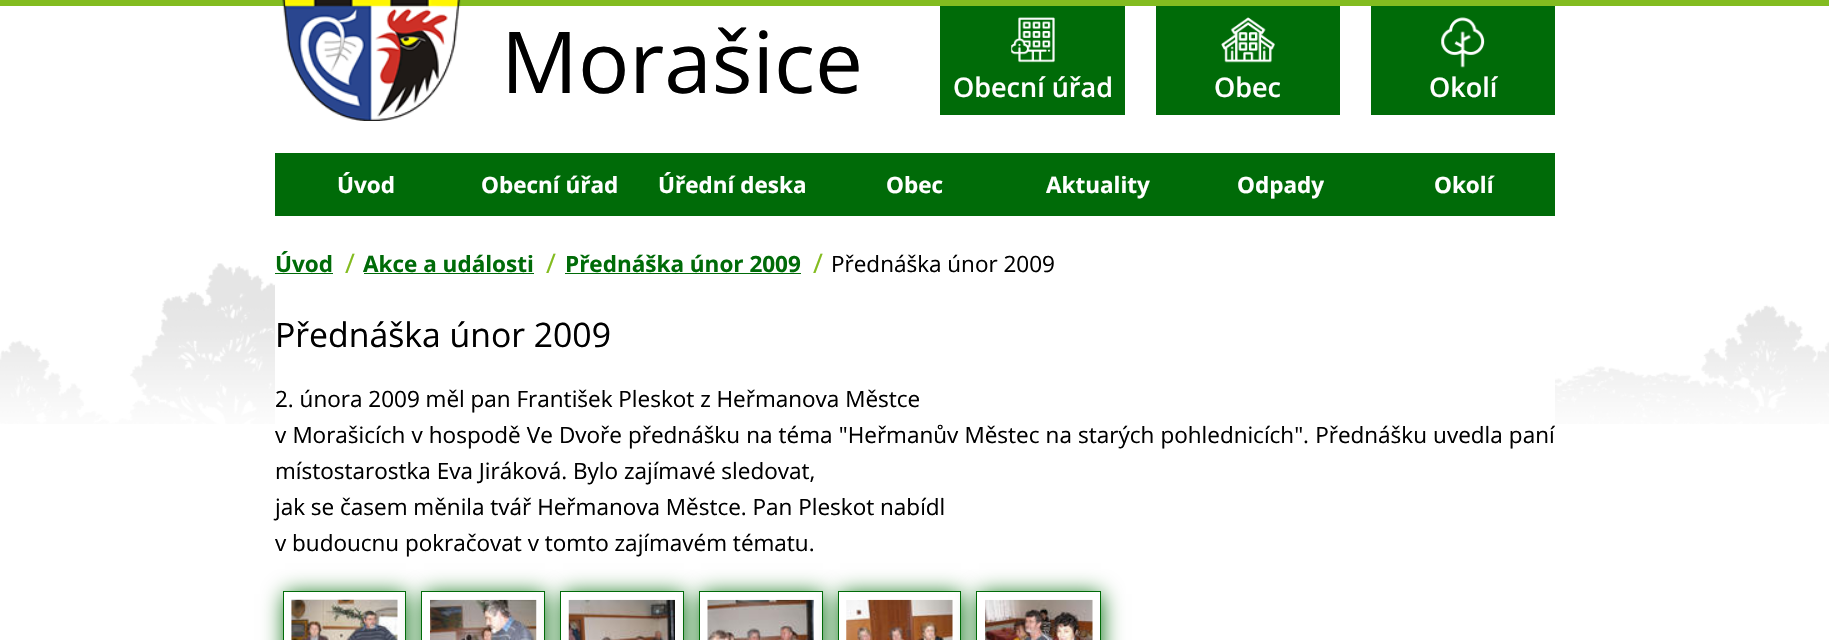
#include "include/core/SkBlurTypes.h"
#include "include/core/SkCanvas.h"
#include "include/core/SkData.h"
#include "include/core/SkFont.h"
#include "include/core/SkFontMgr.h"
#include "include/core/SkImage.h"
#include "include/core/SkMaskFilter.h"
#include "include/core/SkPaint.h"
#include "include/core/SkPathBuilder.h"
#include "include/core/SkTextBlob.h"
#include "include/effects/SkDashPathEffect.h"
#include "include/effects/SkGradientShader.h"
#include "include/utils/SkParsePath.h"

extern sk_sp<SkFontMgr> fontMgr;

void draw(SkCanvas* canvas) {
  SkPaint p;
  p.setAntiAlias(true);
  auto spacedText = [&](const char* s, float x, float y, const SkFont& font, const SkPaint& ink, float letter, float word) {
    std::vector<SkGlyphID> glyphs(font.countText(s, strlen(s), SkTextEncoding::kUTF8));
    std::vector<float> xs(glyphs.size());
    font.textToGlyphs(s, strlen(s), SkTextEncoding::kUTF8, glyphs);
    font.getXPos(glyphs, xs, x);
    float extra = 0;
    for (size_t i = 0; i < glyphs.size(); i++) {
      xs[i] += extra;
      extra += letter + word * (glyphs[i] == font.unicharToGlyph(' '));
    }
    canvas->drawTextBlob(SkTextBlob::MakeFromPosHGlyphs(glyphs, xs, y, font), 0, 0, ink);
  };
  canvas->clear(SK_ColorWHITE);
  canvas->drawImageRect(SkImages::DeferredFromEncodedData(SkData::MakeFromFileName("images/1.png")), SkRect::MakeLTRB(0, 263, 1829, 424), SkSamplingOptions());
  p.setColor(SkColorSetRGB(131, 188, 32));
  canvas->drawRect(SkRect::MakeLTRB(0, 0, 1829, 6), p);
  canvas->drawImageRect(SkImages::DeferredFromEncodedData(SkData::MakeFromFileName("images/2.png")), SkRect::MakeLTRB(282, 0, 461, 121), SkSamplingOptions());
  p.setColor(SkColorSetRGB(0, 107, 8));
  canvas->drawRect(SkRect::MakeLTRB(940, 6, 1125, 115), p);
  canvas->drawImageRect(SkImages::DeferredFromEncodedData(SkData::MakeFromFileName("images/3.png")), SkRect::MakeLTRB(1011, 17, 1055, 63), SkSamplingOptions());
  canvas->drawRect(SkRect::MakeLTRB(1156, 6, 1340, 115), p);
  canvas->drawImageRect(SkImages::DeferredFromEncodedData(SkData::MakeFromFileName("images/4.png")), SkRect::MakeLTRB(1221, 17, 1275, 63), SkSamplingOptions());
  canvas->drawRect(SkRect::MakeLTRB(1371, 6, 1555, 115), p);
  canvas->drawImageRect(SkImages::DeferredFromEncodedData(SkData::MakeFromFileName("images/5.png")), SkRect::MakeLTRB(1441, 17, 1485, 68), SkSamplingOptions());
  canvas->drawRect(SkRect::MakeLTRB(275, 153, 1555, 216), p);
  p.setColor(SK_ColorWHITE);
  canvas->drawRect(SkRect::MakeLTRB(275, 285, 1555, 424), p);
  p.setColor(SkColorSetRGB(0, 107, 8));
  canvas->drawRect(SkRect::MakeLTRB(275, 273, 333, 274), p);
  canvas->drawRect(SkRect::MakeLTRB(364, 273, 534, 274), p);
  canvas->drawRect(SkRect::MakeLTRB(565, 273, 801, 274), p);
  p.setMaskFilter(SkMaskFilter::MakeBlur(kNormal_SkBlurStyle, 10.5f));
  canvas->drawRect(SkRect::MakeLTRB(285, 594, 406, 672), p);
  p.setMaskFilter(nullptr);
  p.setColor(SK_ColorWHITE);
  canvas->drawRect(SkRect::MakeLTRB(283.5f, 591.5f, 405.5f, 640.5f), p);
  p.setStyle(SkPaint::kStroke_Style);
  p.setStrokeWidth(1);
  p.setColor(SkColorSetRGB(0, 107, 8));
  canvas->drawRect(SkRect::MakeLTRB(283.5f, 591.5f, 405.5f, 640.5f), p);
  canvas->drawImageRect(SkImages::DeferredFromEncodedData(SkData::MakeFromFileName("images/6.png")), SkRect::MakeLTRB(291, 599, 398, 640), SkSamplingOptions());
  p.setStyle(SkPaint::kFill_Style);
  p.setMaskFilter(SkMaskFilter::MakeBlur(kNormal_SkBlurStyle, 10.5f));
  canvas->drawRect(SkRect::MakeLTRB(424, 594, 545, 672), p);
  p.setMaskFilter(nullptr);
  p.setColor(SK_ColorWHITE);
  canvas->drawRect(SkRect::MakeLTRB(421.5f, 591.5f, 544.5f, 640.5f), p);
  p.setStyle(SkPaint::kStroke_Style);
  p.setColor(SkColorSetRGB(0, 107, 8));
  canvas->drawRect(SkRect::MakeLTRB(421.5f, 591.5f, 544.5f, 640.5f), p);
  canvas->drawImageRect(SkImages::DeferredFromEncodedData(SkData::MakeFromFileName("images/7.png")), SkRect::MakeLTRB(430, 599, 537, 640), SkSamplingOptions());
  p.setStyle(SkPaint::kFill_Style);
  p.setMaskFilter(SkMaskFilter::MakeBlur(kNormal_SkBlurStyle, 10.5f));
  canvas->drawRect(SkRect::MakeLTRB(563, 594, 684, 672), p);
  p.setMaskFilter(nullptr);
  p.setColor(SK_ColorWHITE);
  canvas->drawRect(SkRect::MakeLTRB(560.5f, 591.5f, 683.5f, 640.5f), p);
  p.setStyle(SkPaint::kStroke_Style);
  p.setColor(SkColorSetRGB(0, 107, 8));
  canvas->drawRect(SkRect::MakeLTRB(560.5f, 591.5f, 683.5f, 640.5f), p);
  canvas->drawImageRect(SkImages::DeferredFromEncodedData(SkData::MakeFromFileName("images/8.png")), SkRect::MakeLTRB(568, 599, 675, 640), SkSamplingOptions());
  p.setStyle(SkPaint::kFill_Style);
  p.setMaskFilter(SkMaskFilter::MakeBlur(kNormal_SkBlurStyle, 10.5f));
  canvas->drawRect(SkRect::MakeLTRB(701, 594, 823, 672), p);
  p.setMaskFilter(nullptr);
  p.setColor(SK_ColorWHITE);
  canvas->drawRect(SkRect::MakeLTRB(699.5f, 591.5f, 822.5f, 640.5f), p);
  p.setStyle(SkPaint::kStroke_Style);
  p.setColor(SkColorSetRGB(0, 107, 8));
  canvas->drawRect(SkRect::MakeLTRB(699.5f, 591.5f, 822.5f, 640.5f), p);
  canvas->drawImageRect(SkImages::DeferredFromEncodedData(SkData::MakeFromFileName("images/9.png")), SkRect::MakeLTRB(707, 599, 814, 640), SkSamplingOptions());
  p.setStyle(SkPaint::kFill_Style);
  p.setMaskFilter(SkMaskFilter::MakeBlur(kNormal_SkBlurStyle, 10.5f));
  canvas->drawRect(SkRect::MakeLTRB(840, 594, 961, 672), p);
  p.setMaskFilter(nullptr);
  p.setColor(SK_ColorWHITE);
  canvas->drawRect(SkRect::MakeLTRB(838.5f, 591.5f, 960.5f, 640.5f), p);
  p.setStyle(SkPaint::kStroke_Style);
  p.setColor(SkColorSetRGB(0, 107, 8));
  canvas->drawRect(SkRect::MakeLTRB(838.5f, 591.5f, 960.5f, 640.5f), p);
  canvas->drawImageRect(SkImages::DeferredFromEncodedData(SkData::MakeFromFileName("images/10.png")), SkRect::MakeLTRB(846, 599, 953, 640), SkSamplingOptions());
  p.setStyle(SkPaint::kFill_Style);
  p.setMaskFilter(SkMaskFilter::MakeBlur(kNormal_SkBlurStyle, 10.5f));
  canvas->drawRect(SkRect::MakeLTRB(979, 594, 1101, 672), p);
  p.setMaskFilter(nullptr);
  p.setColor(SK_ColorWHITE);
  canvas->drawRect(SkRect::MakeLTRB(976.5f, 591.5f, 1100.5f, 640.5f), p);
  p.setStyle(SkPaint::kStroke_Style);
  p.setColor(SkColorSetRGB(0, 107, 8));
  canvas->drawRect(SkRect::MakeLTRB(976.5f, 591.5f, 1100.5f, 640.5f), p);
  canvas->drawImageRect(SkImages::DeferredFromEncodedData(SkData::MakeFromFileName("images/11.png")), SkRect::MakeLTRB(985, 599, 1093, 640), SkSamplingOptions());
  SkFont font1(fontMgr->matchFamilyStyle("Open Sans", SkFontStyle::Normal()), 85.5f);
  font1.setSubpixel(true);
  p.setStyle(SkPaint::kFill_Style);
  p.setColor(SK_ColorBLACK);
  canvas->drawString("Morašice", 501, 93, font1, p);
  SkFont font2(fontMgr->matchFamilyStyle("Open Sans", SkFontStyle(600, SkFontStyle::kNormal_Width, SkFontStyle::kUpright_Slant)), 27);
  font2.setSubpixel(true);
  p.setColor(SK_ColorWHITE);
  canvas->drawString("Obecní úřad", 953, 97, font2, p);
  canvas->drawString("Obec", 1214, 97, font2, p);
  canvas->drawString("Okolí", 1429, 97, font2, p);
  SkFont font3(fontMgr->matchFamilyStyle("Open Sans", SkFontStyle::Bold()), 22.5f);
  font3.setSubpixel(true);
  canvas->drawString("Úvod", 337, 193, font3, p);
  canvas->drawString("Obecní úřad", 481, 193, font3, p);
  canvas->drawString("Úřední deska", 658, 193, font3, p);
  canvas->drawString("Obec", 886, 193, font3, p);
  canvas->drawString("Aktuality", 1046, 193, font3, p);
  canvas->drawString("Odpady", 1237, 193, font3, p);
  canvas->drawString("Okolí", 1434, 193, font3, p);
  p.setColor(SkColorSetRGB(0, 107, 8));
  canvas->drawString("Úvod", 275, 272, font3, p);
  SkFont font4(fontMgr->matchFamilyStyle("Open Sans", SkFontStyle::Normal()), 27);
  font4.setSubpixel(true);
  p.setColor(SkColorSetRGB(131, 188, 32));
  canvas->drawString("/", 345, 273, font4, p);
  p.setColor(SkColorSetRGB(0, 107, 8));
  canvas->drawString("Akce a události", 363, 272, font3, p);
  p.setColor(SkColorSetRGB(131, 188, 32));
  canvas->drawString("/", 546, 273, font4, p);
  p.setColor(SkColorSetRGB(0, 107, 8));
  canvas->drawString("Přednáška únor 2009", 565, 272, font3, p);
  p.setColor(SkColorSetRGB(131, 188, 32));
  canvas->drawString("/", 813, 273, font4, p);
  SkFont font5(fontMgr->matchFamilyStyle("Open Sans", SkFontStyle::Normal()), 22.5f);
  font5.setSubpixel(true);
  p.setColor(SK_ColorBLACK);
  canvas->drawString("Přednáška únor 2009", 831, 272, font5, p);
  SkFont font6(fontMgr->matchFamilyStyle("Open Sans", SkFontStyle::Normal()), 33.75f);
  font6.setSubpixel(true);
  canvas->drawString("Přednáška únor 2009", 275, 347, font6, p);
  canvas->drawString("2. února 2009 měl pan František Pleskot z Heřmanova Městce", 275, 407, font5, p);
  spacedText("v Morašicích v hospodě Ve Dvoře přednášku na téma \"Heřmanův Městec na starých pohlednicích\". Přednášku uvedla paní", 275, 443, font5, p, 0, 0.3f);
  canvas->drawString("místostarostka Eva Jiráková. Bylo zajímavé sledovat,", 275, 479, font5, p);
  canvas->drawString("jak se časem měnila tvář Heřmanova Městce. Pan Pleskot nabídl", 275, 515, font5, p);
  canvas->drawString("v budoucnu pokračovat v tomto zajímavém tématu.", 275, 551, font5, p);
}
